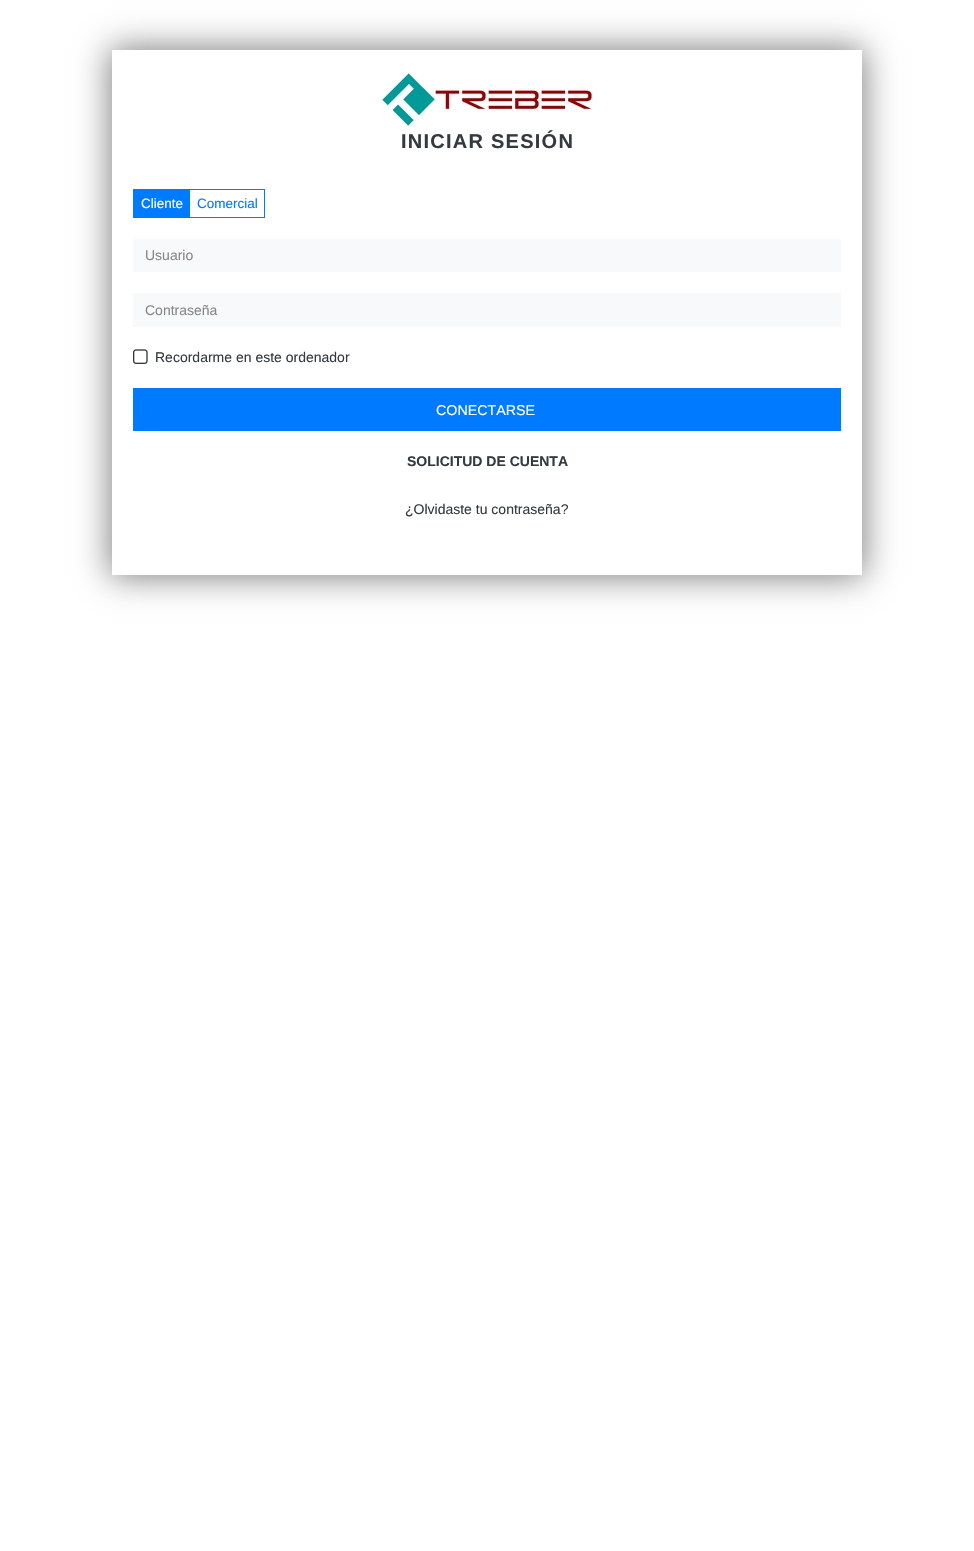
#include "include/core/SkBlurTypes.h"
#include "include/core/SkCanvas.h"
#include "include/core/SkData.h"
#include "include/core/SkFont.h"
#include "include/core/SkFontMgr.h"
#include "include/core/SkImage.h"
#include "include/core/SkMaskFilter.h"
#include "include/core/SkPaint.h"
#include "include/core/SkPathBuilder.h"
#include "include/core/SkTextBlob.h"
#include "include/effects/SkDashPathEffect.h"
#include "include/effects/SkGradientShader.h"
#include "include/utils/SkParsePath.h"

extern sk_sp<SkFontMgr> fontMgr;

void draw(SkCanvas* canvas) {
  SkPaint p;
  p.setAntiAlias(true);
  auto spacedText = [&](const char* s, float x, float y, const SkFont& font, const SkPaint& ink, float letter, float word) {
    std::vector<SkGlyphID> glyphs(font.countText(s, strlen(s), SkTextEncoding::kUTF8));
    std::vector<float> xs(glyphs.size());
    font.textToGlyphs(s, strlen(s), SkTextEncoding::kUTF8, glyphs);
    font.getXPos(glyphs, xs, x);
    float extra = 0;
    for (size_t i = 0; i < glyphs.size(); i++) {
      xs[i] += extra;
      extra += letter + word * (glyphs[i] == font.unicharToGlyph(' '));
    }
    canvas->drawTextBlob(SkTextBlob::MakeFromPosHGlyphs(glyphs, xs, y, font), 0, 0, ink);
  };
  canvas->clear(SK_ColorWHITE);
  canvas->save();
  canvas->clipPath(SkPathBuilder(SkPathFillType::kEvenOdd).moveTo(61, 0).lineTo(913, 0).lineTo(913, 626).lineTo(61, 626).close().moveTo(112, 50).lineTo(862, 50).lineTo(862, 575).lineTo(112, 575).close().detach(), true);
  p.setColor(SkColorSetRGB(128, 128, 128));
  p.setMaskFilter(SkMaskFilter::MakeBlur(kNormal_SkBlurStyle, 16));
  canvas->drawRect(SkRect::MakeLTRB(110, 48, 864, 577), p);
  p.setMaskFilter(nullptr);
  canvas->restore();
  canvas->drawImageRect(SkImages::DeferredFromEncodedData(SkData::MakeFromFileName("images/1.png")), SkRect::MakeLTRB(381, 72, 593, 128), SkSamplingOptions());
  p.setColor(SkColorSetRGB(0, 123, 255));
  canvas->drawRect(SkRect::MakeLTRB(133, 189, 189, 218), p);
  p.setStyle(SkPaint::kStroke_Style);
  p.setStrokeWidth(1);
  canvas->drawRect(SkRect::MakeLTRB(189.5f, 189.5f, 264.5f, 217.5f), p);
  p.setStyle(SkPaint::kFill_Style);
  p.setColor(SkColorSetRGB(248, 249, 250));
  canvas->drawRect(SkRect::MakeLTRB(133.5f, 239.5f, 840.5f, 271.5f), p);
  p.setStyle(SkPaint::kStroke_Style);
  canvas->drawRect(SkRect::MakeLTRB(133.5f, 239.5f, 840.5f, 271.5f), p);
  p.setStyle(SkPaint::kFill_Style);
  canvas->drawRect(SkRect::MakeLTRB(133.5f, 293.5f, 840.5f, 326.5f), p);
  p.setStyle(SkPaint::kStroke_Style);
  canvas->drawRect(SkRect::MakeLTRB(133.5f, 293.5f, 840.5f, 326.5f), p);
  canvas->drawImageRect(SkImages::DeferredFromEncodedData(SkData::MakeFromFileName("images/2.png")), SkRect::MakeLTRB(133, 349, 148, 364), SkSamplingOptions());
  p.setStyle(SkPaint::kFill_Style);
  p.setColor(SkColorSetRGB(0, 123, 255));
  canvas->drawRect(SkRect::MakeLTRB(133, 388, 841, 431), p);
  SkFont font1(fontMgr->matchFamilyStyle("Liberation Sans", SkFontStyle::Bold()), 20);
  font1.setSubpixel(true);
  p.setColor(SkColorSetRGB(52, 58, 64));
  spacedText("INICIAR SESIÓN", 401, 148, font1, p, 1.25f, 0);
  SkFont font2(fontMgr->matchFamilyStyle("Liberation Sans", SkFontStyle::Normal()), 13.5f);
  font2.setSubpixel(true);
  p.setColor(SK_ColorWHITE);
  canvas->drawString("Cliente", 141, 208, font2, p);
  p.setColor(SkColorSetRGB(0, 123, 255));
  canvas->drawString("Comercial", 197, 208, font2, p);
  SkFont font3(fontMgr->matchFamilyStyle("Liberation Sans", SkFontStyle::Normal()), 14);
  font3.setSubpixel(true);
  p.setColor(SkColorSetRGB(136, 136, 136));
  canvas->drawString("Usuario", 145, 260, font3, p);
  canvas->drawString("Contraseña", 145, 315, font3, p);
  p.setColor(SkColorSetRGB(52, 58, 64));
  canvas->drawString("Recordarme en este ordenador", 155, 362, font3, p);
  SkFont font4(fontMgr->matchFamilyStyle("Liberation Sans", SkFontStyle::Normal()), 14.25f);
  font4.setSubpixel(true);
  p.setColor(SK_ColorWHITE);
  canvas->drawString("CONECTARSE", 436, 415, font4, p);
  SkFont font5(fontMgr->matchFamilyStyle("Liberation Sans", SkFontStyle::Bold()), 14);
  font5.setSubpixel(true);
  p.setColor(SkColorSetRGB(52, 58, 64));
  canvas->drawString("SOLICITUD DE CUENTA", 407, 466, font5, p);
  canvas->drawString("¿Olvidaste tu contraseña?", 405, 514, font3, p);
}
